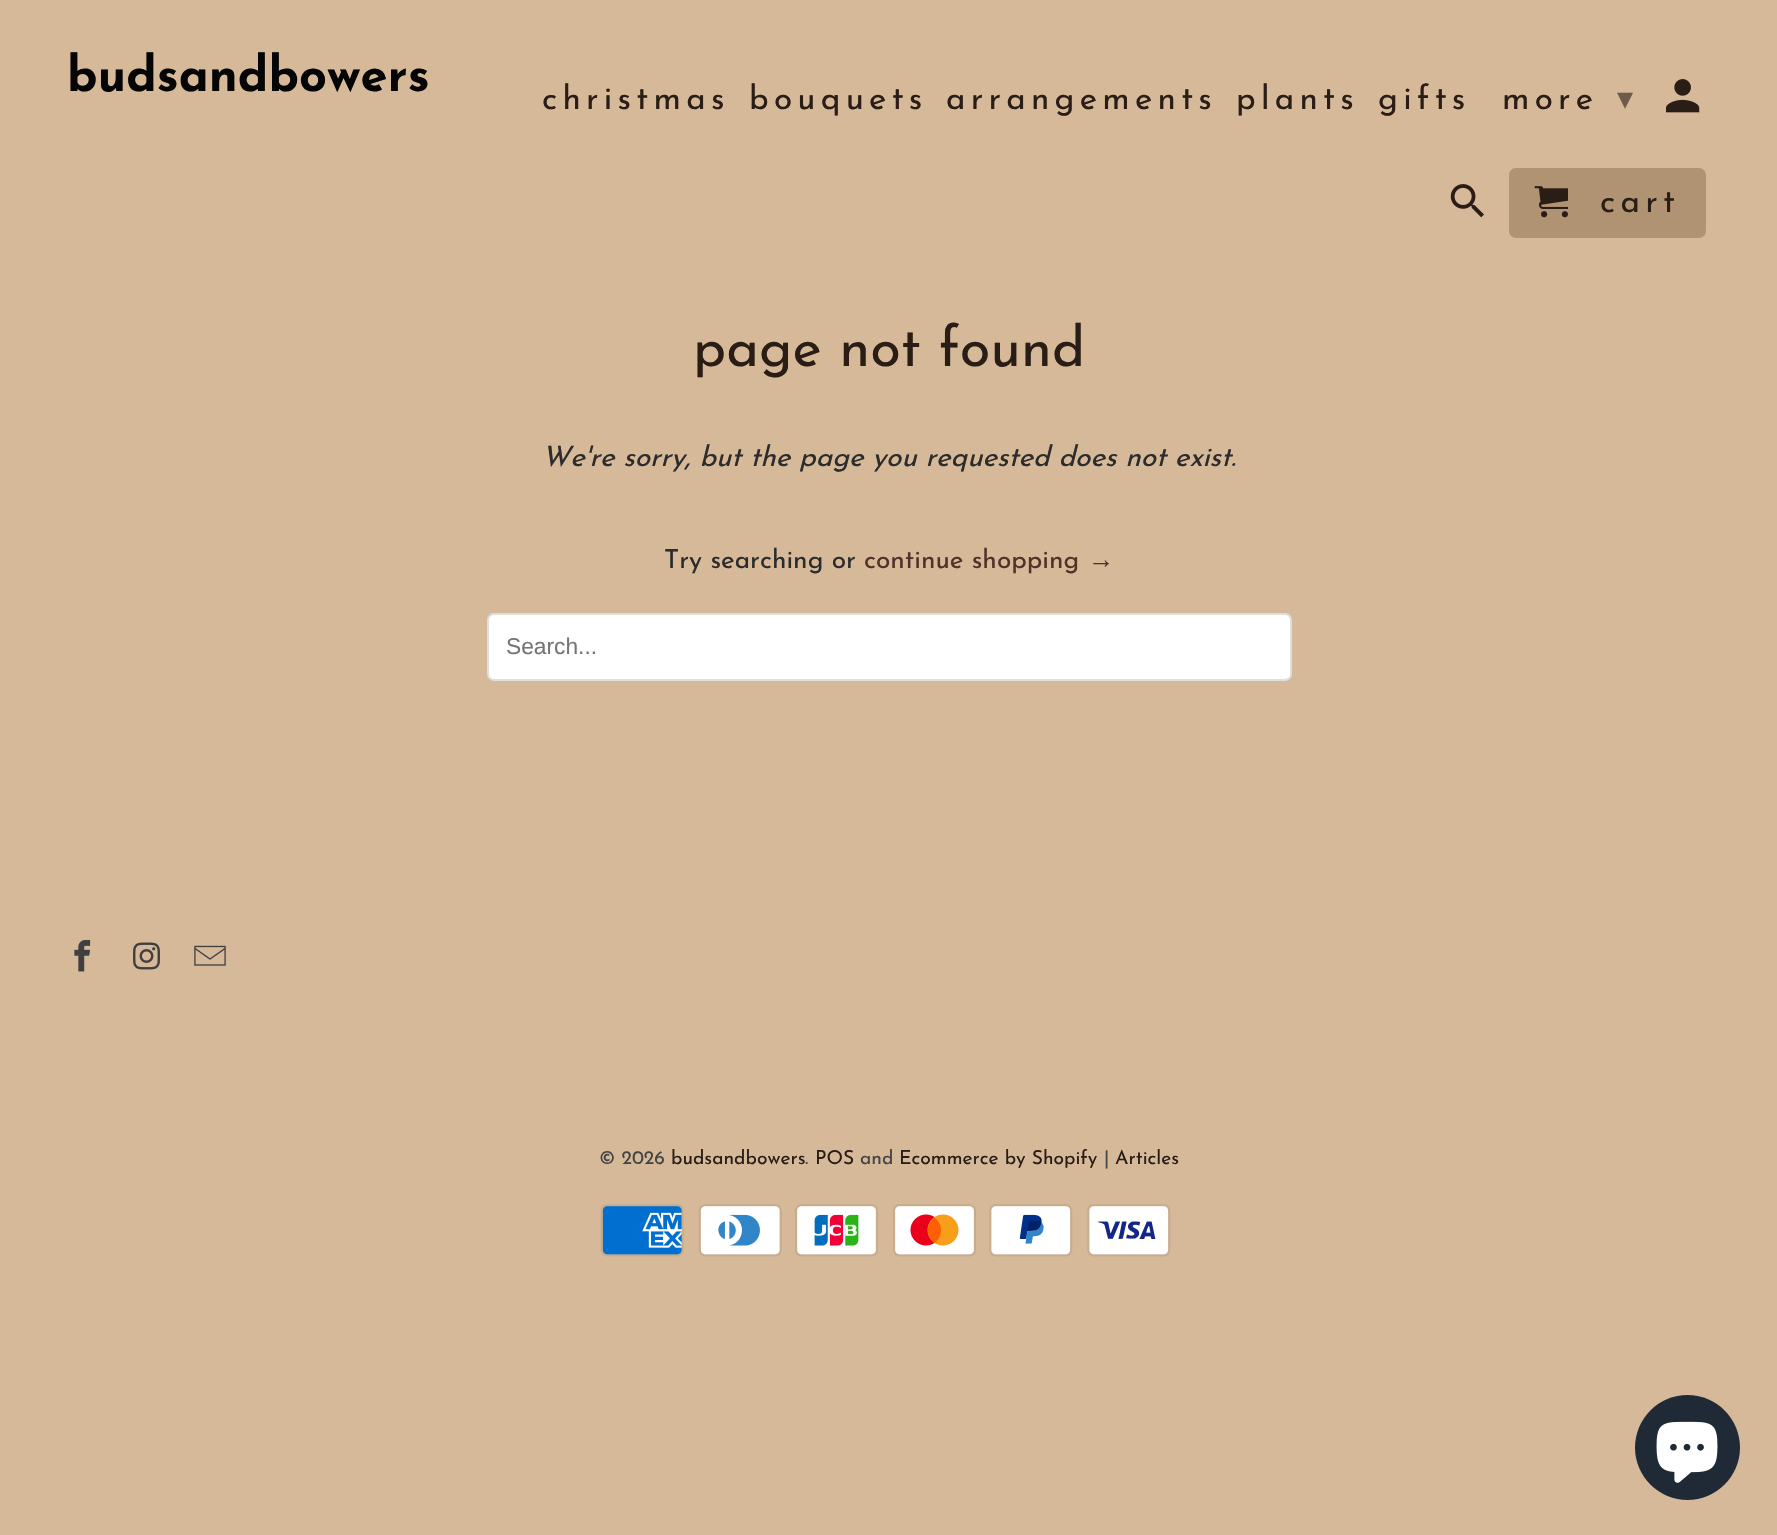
#include "include/core/SkBlurTypes.h"
#include "include/core/SkCanvas.h"
#include "include/core/SkData.h"
#include "include/core/SkFont.h"
#include "include/core/SkFontMgr.h"
#include "include/core/SkImage.h"
#include "include/core/SkMaskFilter.h"
#include "include/core/SkPaint.h"
#include "include/core/SkPathBuilder.h"
#include "include/core/SkTextBlob.h"
#include "include/effects/SkDashPathEffect.h"
#include "include/effects/SkGradientShader.h"
#include "include/utils/SkParsePath.h"

extern sk_sp<SkFontMgr> fontMgr;

void draw(SkCanvas* canvas) {
  SkPaint p;
  p.setAntiAlias(true);
  auto spacedText = [&](const char* s, float x, float y, const SkFont& font, const SkPaint& ink, float letter, float word) {
    std::vector<SkGlyphID> glyphs(font.countText(s, strlen(s), SkTextEncoding::kUTF8));
    std::vector<float> xs(glyphs.size());
    font.textToGlyphs(s, strlen(s), SkTextEncoding::kUTF8, glyphs);
    font.getXPos(glyphs, xs, x);
    float extra = 0;
    for (size_t i = 0; i < glyphs.size(); i++) {
      xs[i] += extra;
      extra += letter + word * (glyphs[i] == font.unicharToGlyph(' '));
    }
    canvas->drawTextBlob(SkTextBlob::MakeFromPosHGlyphs(glyphs, xs, y, font), 0, 0, ink);
  };
  canvas->clear(SkColorSetRGB(214, 185, 153));
  canvas->drawImageRect(SkImages::DeferredFromEncodedData(SkData::MakeFromFileName("images/1.png")), SkRect::MakeLTRB(1666, 79, 1700, 113), SkSamplingOptions());
  canvas->drawImageRect(SkImages::DeferredFromEncodedData(SkData::MakeFromFileName("images/2.png")), SkRect::MakeLTRB(1450, 184, 1484, 218), SkSamplingOptions());
  p.setColor(SkColorSetRGB(176, 147, 115));
  canvas->drawRoundRect(SkRect::MakeLTRB(1509, 168, 1706, 238), 7, 7, p);
  canvas->drawImageRect(SkImages::DeferredFromEncodedData(SkData::MakeFromFileName("images/3.png")), SkRect::MakeLTRB(1534, 186, 1568, 218), SkSamplingOptions());
  p.setColor(SK_ColorWHITE);
  canvas->drawRoundRect(SkRect::MakeLTRB(488, 614, 1291, 680), 6, 6, p);
  p.setStyle(SkPaint::kStroke_Style);
  p.setStrokeWidth(2);
  p.setColor(SkColorSetRGB(220, 224, 224));
  canvas->drawRoundRect(SkRect::MakeLTRB(488, 614, 1291, 680), 6, 6, p);
  canvas->drawImageRect(SkImages::DeferredFromEncodedData(SkData::MakeFromFileName("images/4.png")), SkRect::MakeLTRB(74, 940, 91, 972), SkSamplingOptions());
  canvas->drawImageRect(SkImages::DeferredFromEncodedData(SkData::MakeFromFileName("images/5.png")), SkRect::MakeLTRB(133, 942, 160, 970), SkSamplingOptions());
  canvas->drawImageRect(SkImages::DeferredFromEncodedData(SkData::MakeFromFileName("images/6.png")), SkRect::MakeLTRB(194, 945, 226, 966), SkSamplingOptions());
  canvas->drawImageRect(SkImages::DeferredFromEncodedData(SkData::MakeFromFileName("images/7.png")), SkRect::MakeLTRB(600, 1204, 684, 1257), SkSamplingOptions());
  canvas->drawImageRect(SkImages::DeferredFromEncodedData(SkData::MakeFromFileName("images/8.png")), SkRect::MakeLTRB(698, 1204, 782, 1257), SkSamplingOptions());
  canvas->drawImageRect(SkImages::DeferredFromEncodedData(SkData::MakeFromFileName("images/9.png")), SkRect::MakeLTRB(795, 1204, 878, 1257), SkSamplingOptions());
  canvas->drawImageRect(SkImages::DeferredFromEncodedData(SkData::MakeFromFileName("images/10.png")), SkRect::MakeLTRB(893, 1204, 976, 1257), SkSamplingOptions());
  canvas->drawImageRect(SkImages::DeferredFromEncodedData(SkData::MakeFromFileName("images/11.png")), SkRect::MakeLTRB(989, 1204, 1073, 1257), SkSamplingOptions());
  canvas->drawImageRect(SkImages::DeferredFromEncodedData(SkData::MakeFromFileName("images/12.png")), SkRect::MakeLTRB(1087, 1204, 1171, 1257), SkSamplingOptions());
  p.setStyle(SkPaint::kFill_Style);
  p.setColor(SkColorSetRGB(32, 42, 54));
  canvas->drawCircle(1687.5f, 1447.5f, 52.5f, p);
  canvas->drawImageRect(SkImages::DeferredFromEncodedData(SkData::MakeFromFileName("images/13.png")), SkRect::MakeLTRB(1656, 1421, 1718, 1483), SkSamplingOptions());
  SkFont font1(fontMgr->matchFamilyStyle("Josefin Sans", SkFontStyle::Bold()), 49);
  font1.setSubpixel(true);
  p.setColor(SkColorSetRGB(5, 5, 5));
  canvas->drawString("budsandbowers", 67, 91, font1, p);
  SkFont font2(fontMgr->matchFamilyStyle("Josefin Sans", SkFontStyle::Normal()), 33.25f);
  font2.setSubpixel(true);
  p.setColor(SkColorSetRGB(42, 29, 22));
  spacedText("christmas", 542, 109, font2, p, 5.25f, 0);
  spacedText("bouquets", 749, 109, font2, p, 5.25f, 0);
  spacedText("arrangements", 946, 109, font2, p, 5.25f, 0);
  spacedText("plants", 1236, 109, font2, p, 5.25f, 0);
  spacedText("gifts", 1378, 109, font2, p, 5.25f, 0);
  spacedText("more", 1502, 109, font2, p, 5.25f, 0);
  SkFont font3(fontMgr->matchFamilyStyle("DejaVu Sans", SkFontStyle::Normal()), 32);
  font3.setSubpixel(true);
  p.setColor(SkColorSetRGB(111, 91, 74));
  spacedText("▾", 1617, 109, font3, p, 5.25f, 0);
  p.setColor(SkColorSetRGB(42, 29, 22));
  spacedText("cart", 1600, 212, font2, p, 5.25f, 0);
  SkFont font4(fontMgr->matchFamilyStyle("Josefin Sans", SkFontStyle::Normal()), 56);
  font4.setSubpixel(true);
  canvas->drawString("page not found", 693, 366, font4, p);
  SkFont font5(fontMgr->matchFamilyStyle("Josefin Sans", SkFontStyle::Italic()), 28);
  font5.setSubpixel(true);
  p.setColor(SkColorSetRGB(44, 44, 44));
  canvas->drawString("We're sorry, but the page you requested does not exist.", 542, 466, font5, p);
  SkFont font6(fontMgr->matchFamilyStyle("Josefin Sans", SkFontStyle::Normal()), 26.25f);
  font6.setSubpixel(true);
  canvas->drawString("Try searching or", 664, 568, font6, p);
  p.setColor(SkColorSetRGB(80, 50, 41));
  canvas->drawString("continue shopping", 864, 568, font6, p);
  SkFont font7(fontMgr->matchFamilyStyle("Liberation Serif", SkFontStyle::Normal()), 26.25f);
  font7.setSubpixel(true);
  canvas->drawString("→", 1088, 568, font7, p);
  SkFont font8(fontMgr->matchFamilyStyle("Liberation Sans", SkFontStyle::Normal()), 22.75f);
  font8.setSubpixel(true);
  p.setColor(SkColorSetRGB(117, 117, 117));
  canvas->drawString("Search...", 506, 654, font8, p);
  SkFont font9(fontMgr->matchFamilyStyle("Josefin Sans", SkFontStyle::Normal()), 19.25f);
  font9.setSubpixel(true);
  p.setColor(SkColorSetRGB(68, 68, 68));
  canvas->drawString("© 2026", 599, 1164, font9, p);
  p.setColor(SkColorSetRGB(42, 29, 22));
  canvas->drawString("budsandbowers", 671, 1164, font9, p);
  p.setColor(SkColorSetRGB(68, 68, 68));
  canvas->drawString(".", 805, 1164, font9, p);
  p.setColor(SkColorSetRGB(42, 29, 22));
  canvas->drawString("POS", 815, 1164, font9, p);
  p.setColor(SkColorSetRGB(68, 68, 68));
  canvas->drawString("and", 860, 1164, font9, p);
  p.setColor(SkColorSetRGB(42, 29, 22));
  canvas->drawString("Ecommerce by Shopify", 899, 1164, font9, p);
  p.setColor(SkColorSetRGB(68, 68, 68));
  canvas->drawString("|", 1104, 1164, font9, p);
  p.setColor(SkColorSetRGB(42, 29, 22));
  canvas->drawString("Articles", 1115, 1164, font9, p);
}
